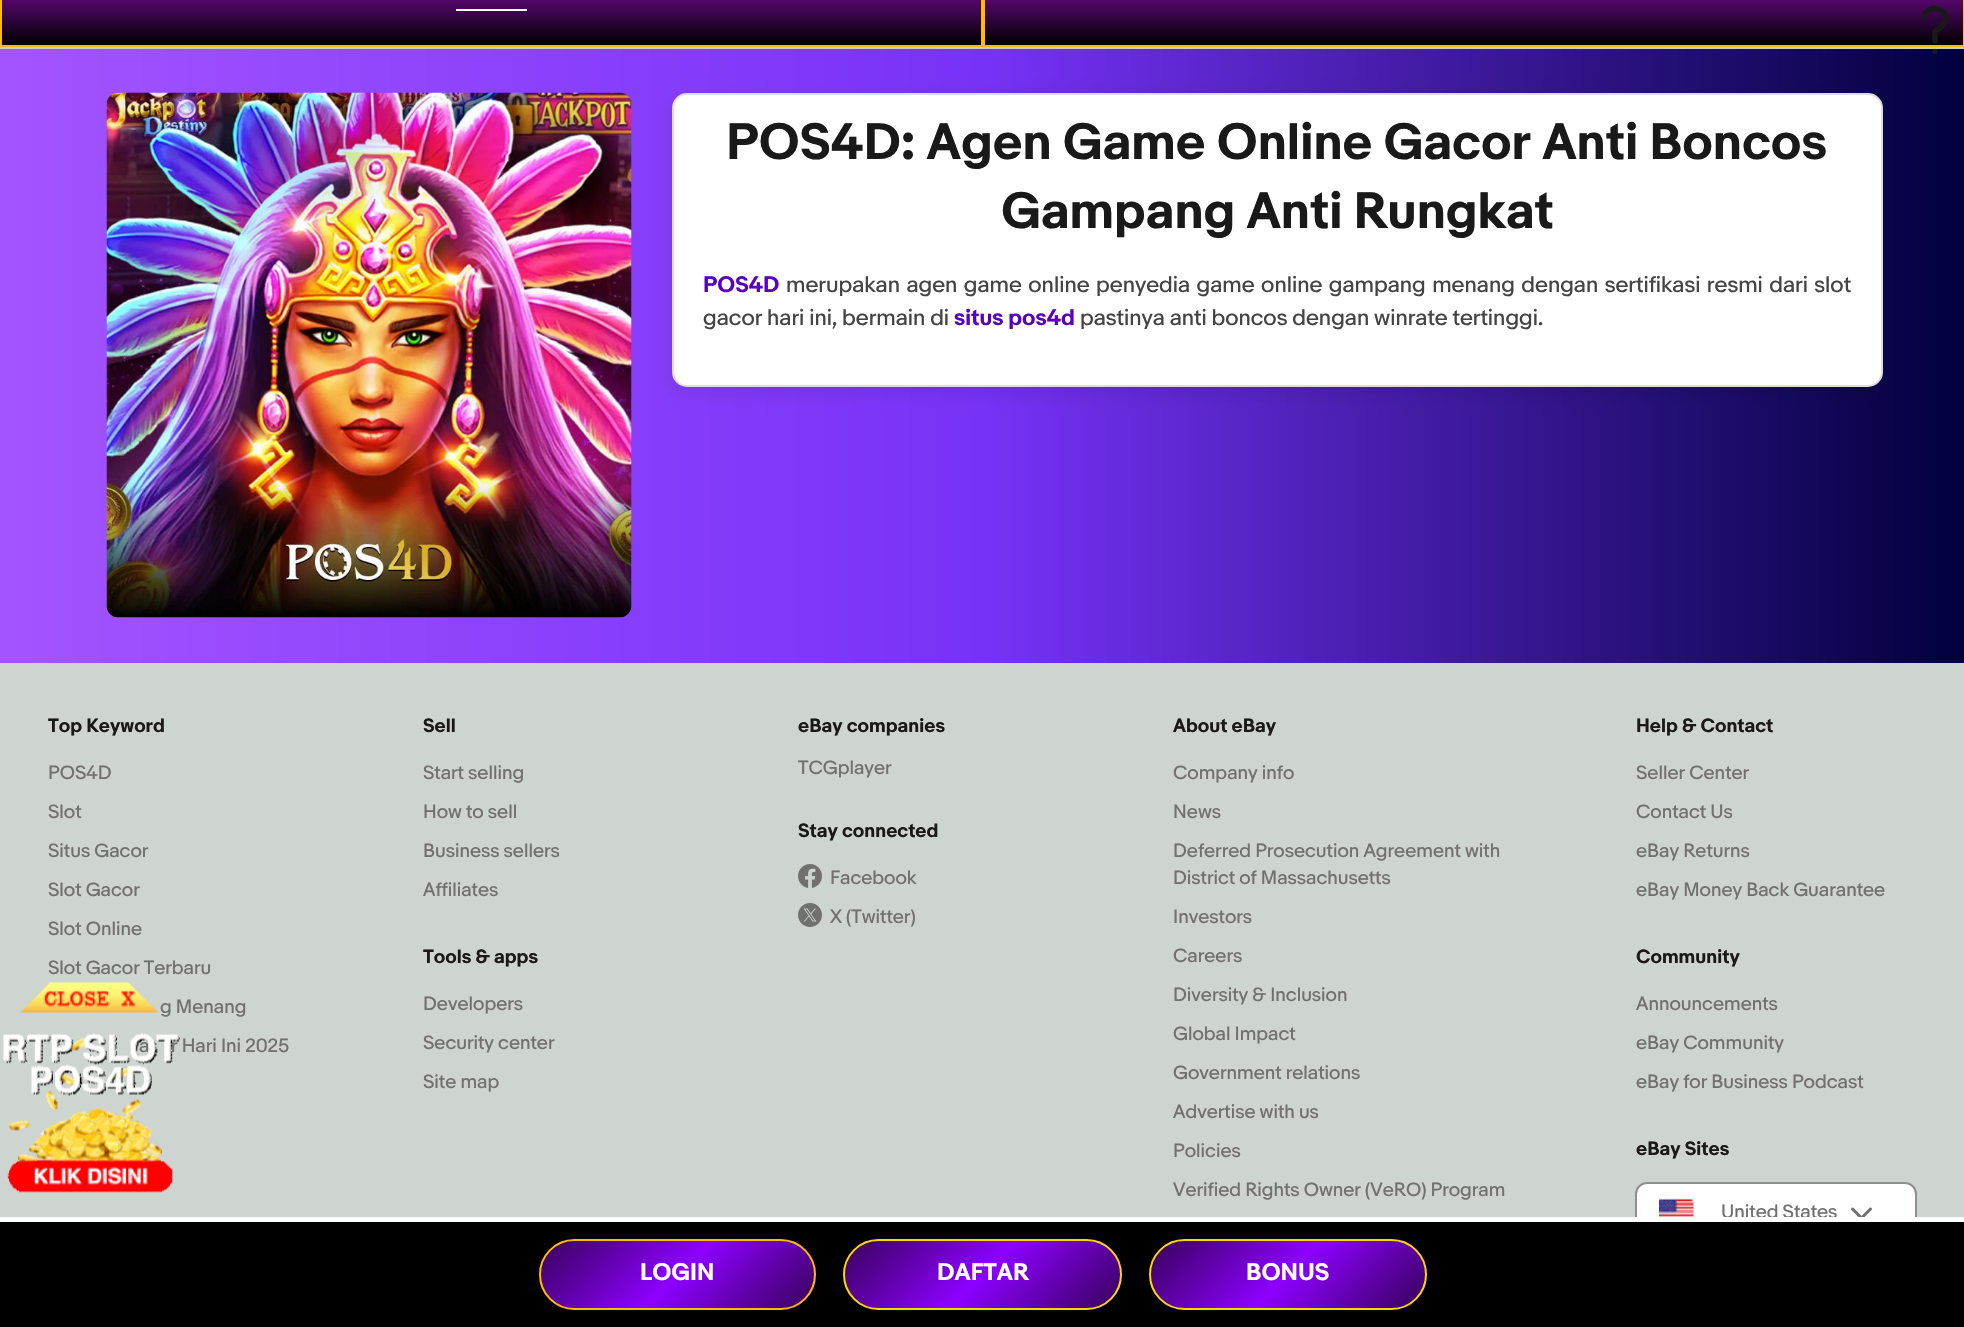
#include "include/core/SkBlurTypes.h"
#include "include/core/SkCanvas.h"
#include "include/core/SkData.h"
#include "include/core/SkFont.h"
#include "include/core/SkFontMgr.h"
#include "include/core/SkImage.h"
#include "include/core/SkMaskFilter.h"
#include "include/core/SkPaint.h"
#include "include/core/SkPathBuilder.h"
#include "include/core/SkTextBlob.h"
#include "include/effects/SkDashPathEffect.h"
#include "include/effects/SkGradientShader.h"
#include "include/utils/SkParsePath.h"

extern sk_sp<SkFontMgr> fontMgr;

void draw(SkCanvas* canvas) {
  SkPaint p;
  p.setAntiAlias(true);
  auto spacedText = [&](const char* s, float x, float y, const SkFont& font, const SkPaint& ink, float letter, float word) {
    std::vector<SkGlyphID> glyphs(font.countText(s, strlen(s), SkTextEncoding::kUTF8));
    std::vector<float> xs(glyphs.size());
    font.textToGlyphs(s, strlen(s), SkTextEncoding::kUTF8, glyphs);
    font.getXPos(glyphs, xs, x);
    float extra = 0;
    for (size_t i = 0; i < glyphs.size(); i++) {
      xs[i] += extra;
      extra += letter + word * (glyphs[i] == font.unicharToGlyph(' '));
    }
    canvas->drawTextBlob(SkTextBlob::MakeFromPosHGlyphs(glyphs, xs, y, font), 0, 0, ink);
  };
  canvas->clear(SK_ColorWHITE);
  {
    const SkColor colors[] = {SkColorSetRGB(165, 15, 211), SK_ColorBLACK};
    const float stops[] = {0, 1};
    const SkPoint ends[] = {{491, -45}, {491, 45}};
    p.setShader(SkGradientShader::MakeLinear(ends, colors, stops, 2, SkTileMode::kClamp));
    p.setAlpha(255);
  }
  canvas->drawRect(SkRect::MakeLTRB(2, 0, 981, 45), p);
  p.setStyle(SkPaint::kStroke_Style);
  p.setStrokeWidth(2);
  p.setShader(nullptr);
  p.setColor(SkColorSetRGB(255, 187, 0));
  canvas->drawRect(SkRect::MakeLTRB(1, -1, 982, 46), p);
  p.setStyle(SkPaint::kFill_Style);
  p.setColor(SK_ColorWHITE);
  canvas->drawRect(SkRect::MakeLTRB(456, 9, 527, 11), p);
  {
    const SkColor colors[] = {SkColorSetRGB(165, 15, 211), SK_ColorBLACK};
    const float stops[] = {0, 1};
    const SkPoint ends[] = {{1474, -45}, {1474, 45}};
    p.setShader(SkGradientShader::MakeLinear(ends, colors, stops, 2, SkTileMode::kClamp));
    p.setAlpha(255);
  }
  canvas->drawRect(SkRect::MakeLTRB(985, 0, 1963, 45), p);
  p.setStyle(SkPaint::kStroke_Style);
  p.setShader(nullptr);
  p.setColor(SkColorSetRGB(255, 187, 0));
  canvas->drawRect(SkRect::MakeLTRB(984, -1, 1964, 46), p);
  p.setStyle(SkPaint::kFill_Style);
  {
    const SkColor colors[] = {SkColorSetRGB(164, 84, 255), SkColorSetRGB(119, 50, 248), SkColorSetRGB(1, 0, 61)};
    const float stops[] = {0, 0.5f, 1};
    const SkPoint ends[] = {{0, 711}, {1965, 711}};
    p.setShader(SkGradientShader::MakeLinear(ends, colors, stops, 3, SkTileMode::kClamp));
    p.setAlpha(255);
  }
  canvas->drawRect(SkRect::MakeLTRB(0, 49, 1964, 663), p);
  p.setShader(nullptr);
  p.setColor(SkColorSetRGB(204, 204, 204));
  canvas->drawRect(SkRect::MakeLTRB(0, 47, 1964, 49), p);
  canvas->drawImageRect(SkImages::DeferredFromEncodedData(SkData::MakeFromFileName("images/1.png")), SkRect::MakeLTRB(1921, 5, 1949, 55), SkSamplingOptions());
  canvas->drawImageRect(SkImages::DeferredFromEncodedData(SkData::MakeFromFileName("images/2.png")), SkRect::MakeLTRB(106, 92, 632, 618), SkSamplingOptions());
  p.setColor(SkColorSetARGB(26, 0, 0, 0));
  p.setMaskFilter(SkMaskFilter::MakeBlur(kNormal_SkBlurStyle, 9));
  canvas->drawRoundRect(SkRect::MakeLTRB(672, 99, 1883, 393), 15, 15, p);
  p.setMaskFilter(nullptr);
  p.setColor(SK_ColorWHITE);
  canvas->drawRoundRect(SkRect::MakeLTRB(673, 94, 1882, 386), 14, 14, p);
  p.setStyle(SkPaint::kStroke_Style);
  p.setColor(SkColorSetRGB(221, 221, 221));
  canvas->drawRoundRect(SkRect::MakeLTRB(673, 94, 1882, 386), 14, 14, p);
  p.setStyle(SkPaint::kFill_Style);
  p.setColor(SkColorSetRGB(206, 212, 207));
  canvas->drawRect(SkRect::MakeLTRB(0, 663, 1964, 1217), p);
  canvas->drawImageRect(SkImages::DeferredFromEncodedData(SkData::MakeFromFileName("images/3.png")), SkRect::MakeLTRB(798, 864, 822, 888), SkSamplingOptions());
  canvas->drawImageRect(SkImages::DeferredFromEncodedData(SkData::MakeFromFileName("images/4.png")), SkRect::MakeLTRB(798, 903, 822, 927), SkSamplingOptions());
  p.setColor(SK_ColorWHITE);
  canvas->drawRoundRect(SkRect::MakeLTRB(1636, 1183, 1916, 1241), 11, 11, p);
  p.setStyle(SkPaint::kStroke_Style);
  p.setColor(SkColorSetRGB(143, 143, 143));
  canvas->drawRoundRect(SkRect::MakeLTRB(1636, 1183, 1916, 1241), 11, 11, p);
  canvas->drawImageRect(SkImages::DeferredFromEncodedData(SkData::MakeFromFileName("images/5.png")), SkRect::MakeLTRB(1659, 1198, 1695, 1217), SkSamplingOptions());
  canvas->drawImageRect(SkImages::DeferredFromEncodedData(SkData::MakeFromFileName("images/6.png")), SkRect::MakeLTRB(1851, 1207, 1872, 1217), SkSamplingOptions());
  p.setStyle(SkPaint::kFill_Style);
  p.setColor(SK_ColorBLACK);
  canvas->drawRect(SkRect::MakeLTRB(0, 1222, 1964, 1327), p);
  canvas->save();
  canvas->clipPath(SkPathBuilder().moveTo(574.5f, 1239).lineTo(780.5f, 1239).cubicTo(800, 1239, 816, 1255, 816, 1274.5f).cubicTo(816, 1294, 800, 1310, 780.5f, 1310).lineTo(574.5f, 1310).cubicTo(555, 1310, 539, 1294, 539, 1274.5f).cubicTo(539, 1255, 555, 1239, 574.5f, 1239).close().detach(), true);
  {
    const SkColor colors[] = {SkColorSetRGB(55, 2, 90), SkColorSetRGB(140, 0, 255), SkColorSetRGB(55, 2, 90)};
    const float stops[] = {0, 0.5f, 1};
    const SkPoint ends[] = {{592, 1189}, {763, 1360}};
    p.setShader(SkGradientShader::MakeLinear(ends, colors, stops, 3, SkTileMode::kClamp));
    p.setAlpha(255);
  }
  canvas->drawRect(SkRect::MakeLTRB(540, 1241, 815, 1308), p);
  canvas->restore();
  p.setStyle(SkPaint::kStroke_Style);
  p.setShader(nullptr);
  p.setColor(SkColorSetRGB(255, 187, 0));
  canvas->drawRoundRect(SkRect::MakeLTRB(540, 1240, 815, 1309), 34.5f, 34.5f, p);
  canvas->save();
  canvas->clipPath(SkPathBuilder().moveTo(878.5f, 1239).lineTo(1086.5f, 1239).cubicTo(1106, 1239, 1122, 1255, 1122, 1274.5f).cubicTo(1122, 1294, 1106, 1310, 1086.5f, 1310).lineTo(878.5f, 1310).cubicTo(859, 1310, 843, 1294, 843, 1274.5f).cubicTo(843, 1255, 859, 1239, 878.5f, 1239).close().detach(), true);
  p.setStyle(SkPaint::kFill_Style);
  {
    const SkColor colors[] = {SkColorSetRGB(55, 2, 90), SkColorSetRGB(140, 0, 255), SkColorSetRGB(55, 2, 90)};
    const float stops[] = {0, 0.5f, 1};
    const SkPoint ends[] = {{897, 1188}, {1068, 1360}};
    p.setShader(SkGradientShader::MakeLinear(ends, colors, stops, 3, SkTileMode::kClamp));
    p.setAlpha(255);
  }
  canvas->drawRect(SkRect::MakeLTRB(845, 1241, 1121, 1308), p);
  canvas->restore();
  p.setStyle(SkPaint::kStroke_Style);
  p.setShader(nullptr);
  p.setColor(SkColorSetRGB(255, 215, 0));
  canvas->drawRoundRect(SkRect::MakeLTRB(844, 1240, 1121, 1309), 34.5f, 34.5f, p);
  canvas->save();
  canvas->clipPath(SkPathBuilder().moveTo(1184.5f, 1239).lineTo(1391.5f, 1239).cubicTo(1411, 1239, 1427, 1255, 1427, 1274.5f).cubicTo(1427, 1294, 1411, 1310, 1391.5f, 1310).lineTo(1184.5f, 1310).cubicTo(1165, 1310, 1149, 1294, 1149, 1274.5f).cubicTo(1149, 1255, 1165, 1239, 1184.5f, 1239).close().detach(), true);
  p.setStyle(SkPaint::kFill_Style);
  {
    const SkColor colors[] = {SkColorSetRGB(55, 2, 90), SkColorSetRGB(140, 0, 255), SkColorSetRGB(55, 2, 90)};
    const float stops[] = {0, 0.5f, 1};
    const SkPoint ends[] = {{1202, 1189}, {1373, 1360}};
    p.setShader(SkGradientShader::MakeLinear(ends, colors, stops, 3, SkTileMode::kClamp));
    p.setAlpha(255);
  }
  canvas->drawRect(SkRect::MakeLTRB(1151, 1241, 1425, 1308), p);
  canvas->restore();
  p.setStyle(SkPaint::kStroke_Style);
  p.setShader(nullptr);
  p.setColor(SkColorSetRGB(255, 215, 0));
  canvas->drawRoundRect(SkRect::MakeLTRB(1150, 1240, 1426, 1309), 34.5f, 34.5f, p);
  canvas->drawImageRect(SkImages::DeferredFromEncodedData(SkData::MakeFromFileName("images/7.png")), SkRect::MakeLTRB(20, 982, 158, 1013), SkSamplingOptions());
  SkFont font1(fontMgr->matchFamilyStyle("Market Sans", SkFontStyle::Bold()), 48);
  font1.setSubpixel(true);
  p.setStyle(SkPaint::kFill_Style);
  p.setColor(SkColorSetRGB(25, 25, 25));
  canvas->drawString("POS4D: Agen Game Online Gacor Anti Boncos", 726, 159, font1, p);
  canvas->drawString("Gampang Anti Rungkat", 1001, 228, font1, p);
  SkFont font2(fontMgr->matchFamilyStyle("Market Sans", SkFontStyle::Bold()), 21);
  font2.setSubpixel(true);
  p.setColor(SkColorSetRGB(89, 2, 189));
  canvas->drawString("POS4D", 703, 292, font2, p);
  SkFont font3(fontMgr->matchFamilyStyle("Market Sans", SkFontStyle::Normal()), 21);
  font3.setSubpixel(true);
  p.setColor(SkColorSetRGB(68, 68, 68));
  spacedText("merupakan agen game online penyedia game online gampang menang dengan sertifikasi resmi dari slot", 786, 292, font3, p, 0, 1.6f);
  canvas->drawString("gacor hari ini, bermain di", 703, 325, font3, p);
  p.setColor(SkColorSetRGB(89, 2, 189));
  canvas->drawString("situs pos4d", 954, 325, font2, p);
  p.setColor(SkColorSetRGB(68, 68, 68));
  canvas->drawString("pastinya anti boncos dengan winrate tertinggi.", 1080, 325, font3, p);
  SkFont font4(fontMgr->matchFamilyStyle("Market Sans", SkFontStyle::Bold()), 18);
  font4.setSubpixel(true);
  p.setColor(SkColorSetRGB(25, 25, 25));
  canvas->drawString("Top Keyword", 48, 732, font4, p);
  SkFont font5(fontMgr->matchFamilyStyle("Market Sans", SkFontStyle::Normal()), 18);
  font5.setSubpixel(true);
  p.setColor(SkColorSetRGB(112, 112, 112));
  canvas->drawString("POS4D", 48, 779, font5, p);
  canvas->drawString("Slot", 48, 818, font5, p);
  canvas->drawString("Situs Gacor", 48, 857, font5, p);
  canvas->drawString("Slot Gacor", 48, 896, font5, p);
  canvas->drawString("Slot Online", 48, 935, font5, p);
  canvas->drawString("Slot Gacor Terbaru", 48, 974, font5, p);
  canvas->drawString("g Menang", 160, 1013, font5, p);
  canvas->drawString("a", 139, 1052, font5, p);
  canvas->drawString("r Hari Ini 2025", 171, 1052, font5, p);
  p.setColor(SkColorSetRGB(25, 25, 25));
  canvas->drawString("Sell", 423, 732, font4, p);
  p.setColor(SkColorSetRGB(112, 112, 112));
  canvas->drawString("Start selling", 423, 779, font5, p);
  canvas->drawString("How to sell", 423, 818, font5, p);
  canvas->drawString("Business sellers", 423, 857, font5, p);
  canvas->drawString("Affiliates", 423, 896, font5, p);
  p.setColor(SkColorSetRGB(25, 25, 25));
  canvas->drawString("Tools & apps", 423, 963, font4, p);
  p.setColor(SkColorSetRGB(112, 112, 112));
  canvas->drawString("Developers", 423, 1010, font5, p);
  canvas->drawString("Security center", 423, 1049, font5, p);
  canvas->drawString("Site map", 423, 1088, font5, p);
  p.setColor(SkColorSetRGB(25, 25, 25));
  canvas->drawString("eBay companies", 798, 732, font4, p);
  p.setColor(SkColorSetRGB(112, 112, 112));
  canvas->drawString("TCGplayer", 798, 774, font5, p);
  p.setColor(SkColorSetRGB(25, 25, 25));
  canvas->drawString("Stay connected", 798, 837, font4, p);
  p.setColor(SkColorSetRGB(112, 112, 112));
  canvas->drawString("Facebook", 830, 884, font5, p);
  canvas->drawString("X (Twitter)", 830, 923, font5, p);
  p.setColor(SkColorSetRGB(25, 25, 25));
  canvas->drawString("About eBay", 1173, 732, font4, p);
  p.setColor(SkColorSetRGB(112, 112, 112));
  canvas->drawString("Company info", 1173, 779, font5, p);
  canvas->drawString("News", 1173, 818, font5, p);
  canvas->drawString("Deferred Prosecution Agreement with", 1173, 857, font5, p);
  canvas->drawString("District of Massachusetts", 1173, 884, font5, p);
  canvas->drawString("Investors", 1173, 923, font5, p);
  canvas->drawString("Careers", 1173, 962, font5, p);
  canvas->drawString("Diversity & Inclusion", 1173, 1001, font5, p);
  canvas->drawString("Global Impact", 1173, 1040, font5, p);
  canvas->drawString("Government relations", 1173, 1079, font5, p);
  canvas->drawString("Advertise with us", 1173, 1118, font5, p);
  canvas->drawString("Policies", 1173, 1157, font5, p);
  canvas->drawString("Verified Rights Owner (VeRO) Program", 1173, 1196, font5, p);
  p.setColor(SkColorSetRGB(25, 25, 25));
  canvas->drawString("Help & Contact", 1636, 732, font4, p);
  p.setColor(SkColorSetRGB(112, 112, 112));
  canvas->drawString("Seller Center", 1636, 779, font5, p);
  canvas->drawString("Contact Us", 1636, 818, font5, p);
  canvas->drawString("eBay Returns", 1636, 857, font5, p);
  canvas->drawString("eBay Money Back Guarantee", 1636, 896, font5, p);
  p.setColor(SkColorSetRGB(25, 25, 25));
  canvas->drawString("Community", 1636, 963, font4, p);
  p.setColor(SkColorSetRGB(112, 112, 112));
  canvas->drawString("Announcements", 1636, 1010, font5, p);
  canvas->drawString("eBay Community", 1636, 1049, font5, p);
  canvas->drawString("eBay for Business Podcast", 1636, 1088, font5, p);
  p.setColor(SkColorSetRGB(25, 25, 25));
  canvas->drawString("eBay Sites", 1636, 1155, font4, p);
  p.setColor(SkColorSetRGB(112, 112, 112));
  canvas->drawString("United States", 1721, 1218, font5, p);
  p.setColor(SK_ColorWHITE);
  canvas->drawRect(SkRect::MakeLTRB(1635, 1217, 1917, 1222), p);
  SkFont font6(fontMgr->matchFamilyStyle("Market Sans", SkFontStyle::Bold()), 22.5f);
  font6.setSubpixel(true);
  canvas->drawString("LOGIN", 640, 1280, font6, p);
  canvas->drawString("DAFTAR", 937, 1280, font6, p);
  canvas->drawString("BONUS", 1246, 1280, font6, p);
  canvas->drawImageRect(SkImages::DeferredFromEncodedData(SkData::MakeFromFileName("images/8.png")), SkRect::MakeLTRB(3, 1033, 180, 1193), SkSamplingOptions());
}
